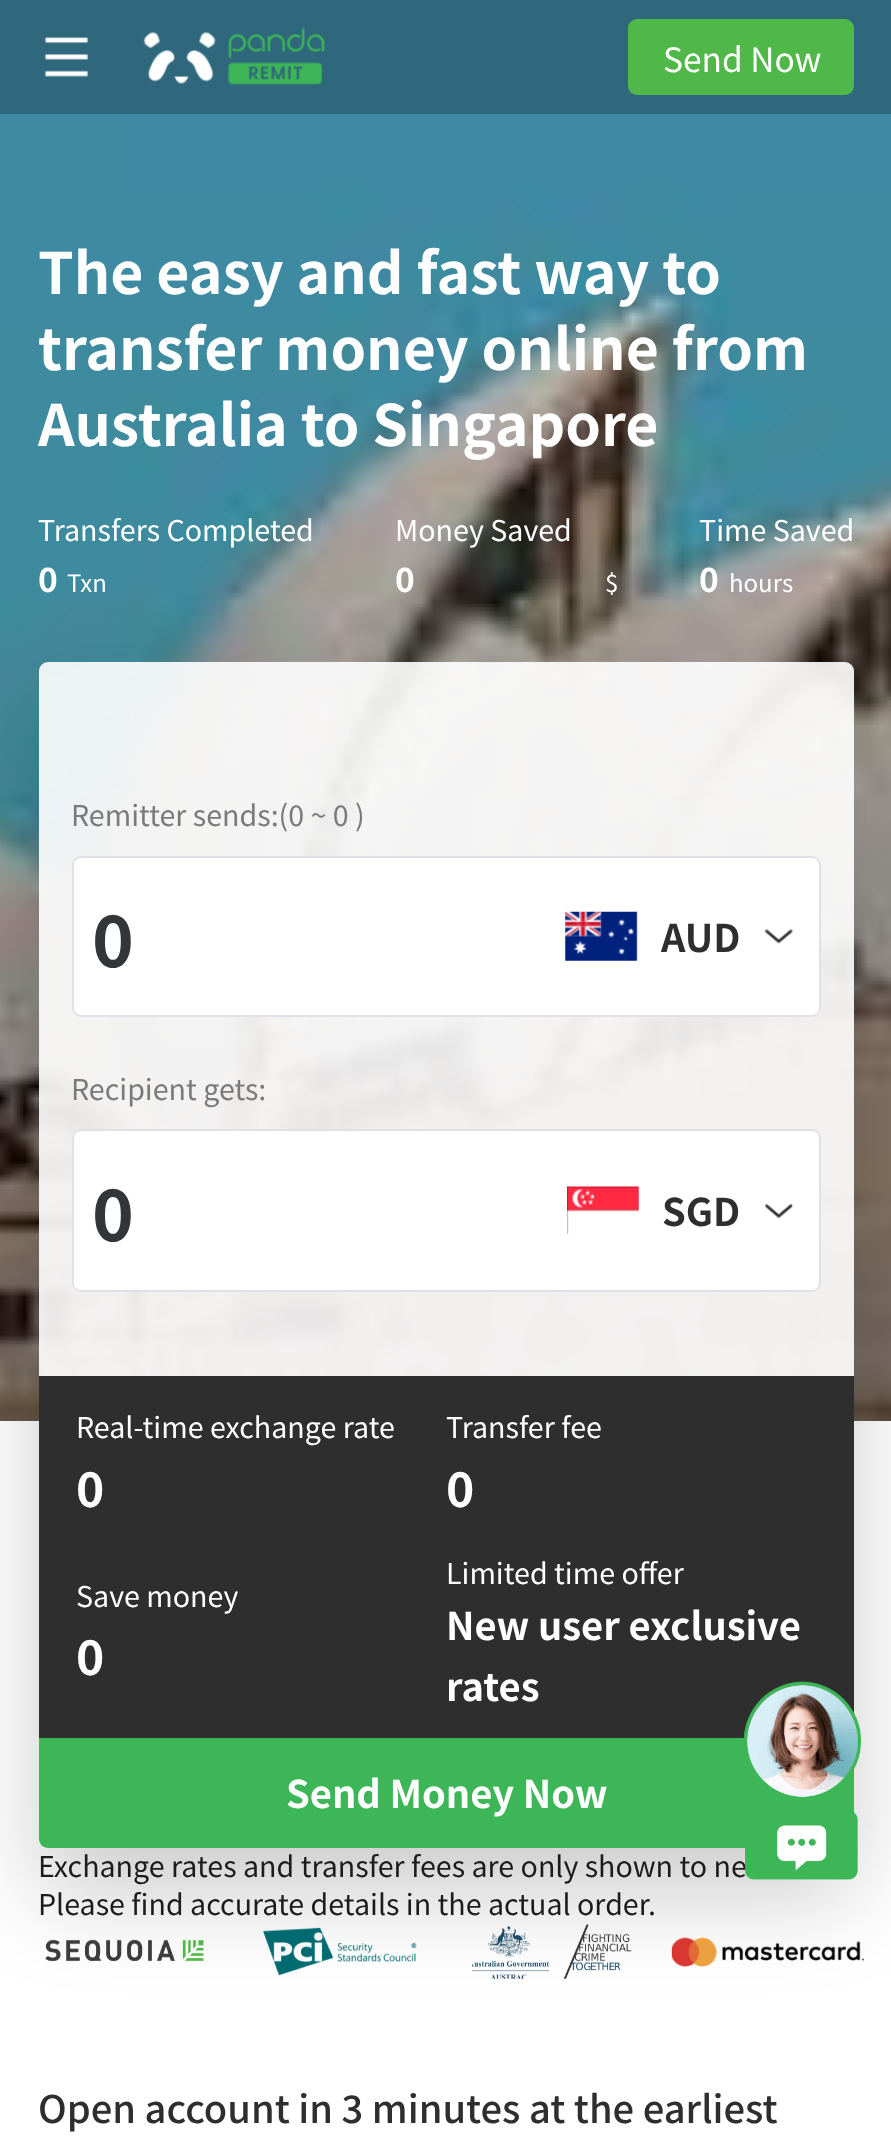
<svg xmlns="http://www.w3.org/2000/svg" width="891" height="2147">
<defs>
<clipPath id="clip1"><path d="M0 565h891v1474h-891zm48 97h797c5 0 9 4 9 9v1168c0 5-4 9-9 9h-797c-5 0-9-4-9-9v-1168c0-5 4-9 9-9z" clip-rule="evenodd"/></clipPath>
</defs>
<rect width="100%" height="100%" fill="#fff"/>
<rect width="891" height="114" fill="#2f687c"/>
<image x="44" y="37" width="44" height="40" href="media/1.png"/>
<image x="143" y="27" width="182" height="58" href="media/2.png"/>
<rect x="628" y="19" width="226" height="76" rx="9" fill="#50b848"/>
<text x="663" y="72" style="font-family:Noto Sans CJK SC;font-size:33.5px;fill:#fff">Send Now</text>
<image x="0" y="114" width="891" height="1307" href="media/12.png"/>
<text x="38" y="294" style="font-family:Noto Sans CJK SC;font-size:57.1px;font-weight:bold;fill:#fff">The easy and fast way to</text>
<text x="38" y="370" style="font-family:Noto Sans CJK SC;font-size:57.1px;font-weight:bold;fill:#fff">transfer money online from</text>
<text x="38" y="446" style="font-family:Noto Sans CJK SC;font-size:57.1px;font-weight:bold;fill:#fff">Australia to Singapore</text>
<text x="38" y="541" style="font-family:Noto Sans CJK SC;font-size:28.6px;fill:#fff">Transfers Completed</text>
<text x="38" y="592" style="font-family:Noto Sans CJK SC;font-size:33.5px;font-weight:bold;fill:#fff">0</text>
<text x="67" y="592" style="font-family:Noto Sans CJK SC;font-size:24px;fill:#fff">Txn</text>
<text x="395" y="541" style="font-family:Noto Sans CJK SC;font-size:28.6px;fill:#fff">Money Saved</text>
<text x="395" y="592" style="font-family:Noto Sans CJK SC;font-size:33.5px;font-weight:bold;fill:#fff">0</text>
<text x="605" y="592" style="font-family:Noto Sans CJK SC;font-size:24px;fill:#fff">$</text>
<text x="699" y="541" style="font-family:Noto Sans CJK SC;font-size:28.6px;fill:#fff">Time Saved</text>
<text x="699" y="592" style="font-family:Noto Sans CJK SC;font-size:33.5px;font-weight:bold;fill:#fff">0</text>
<text x="729" y="592" style="font-family:Noto Sans CJK SC;font-size:24px;fill:#fff">hours</text>
<g clip-path="url(#clip1)">
<rect x="39" y="709" width="815" height="1186" rx="9" fill="#00000033" filter="blur(47.5px)"/>
</g>
<rect x="39" y="662" width="815" height="1186" rx="9" fill="#ffffffe6"/>
<text x="71" y="826" style="font-family:Noto Sans CJK SC;font-size:28.6px;fill:#7a7a7a">Remitter sends:(0 ~ 0 )</text>
<rect x="72" y="856" width="749" height="161" rx="9" fill="#fff"/>
<image x="565" y="911" width="73" height="50" href="media/3.png"/>
<image x="764" y="928" width="30" height="16" href="media/4.png"/>
<rect x="73" y="857" width="747" height="159" rx="8" fill="none" stroke="#e0e0e6" stroke-width="2"/>
<text x="92" y="967" style="font-family:Noto Sans CJK SC;font-size:71px;font-weight:bold;fill:#333639">0</text>
<text x="661" y="952" style="font-family:Noto Sans CJK SC;font-size:38.1px;font-weight:bold;fill:#2e2e2e">AUD</text>
<text x="71" y="1100" style="font-family:Noto Sans CJK SC;font-size:28.6px;fill:#7a7a7a">Recipient gets:</text>
<rect x="72" y="1129" width="749" height="163" rx="9" fill="#fff"/>
<image x="567" y="1186" width="72" height="49" href="media/5.png"/>
<image x="764" y="1203" width="29" height="16" href="media/6.png"/>
<rect x="73" y="1130" width="747" height="161" rx="8" fill="none" stroke="#e0e0e6" stroke-width="2"/>
<text x="92" y="1241" style="font-family:Noto Sans CJK SC;font-size:71px;font-weight:bold;fill:#333639">0</text>
<text x="662" y="1226" style="font-family:Noto Sans CJK SC;font-size:38.1px;font-weight:bold;fill:#2e2e2e">SGD</text>
<rect x="39" y="1376" width="815" height="362" fill="#2e2e2e"/>
<text x="76" y="1438" style="font-family:Noto Sans CJK SC;font-size:28.6px;fill:#fff">Real-time exchange rate</text>
<text x="76" y="1507" style="font-family:Noto Sans CJK SC;font-size:48px;font-weight:bold;fill:#fff">0</text>
<text x="446" y="1438" style="font-family:Noto Sans CJK SC;font-size:28.6px;fill:#fff">Transfer fee</text>
<text x="446" y="1507" style="font-family:Noto Sans CJK SC;font-size:48px;font-weight:bold;fill:#fff">0</text>
<text x="76" y="1607" style="font-family:Noto Sans CJK SC;font-size:28.6px;fill:#fff">Save money</text>
<text x="76" y="1675" style="font-family:Noto Sans CJK SC;font-size:48px;font-weight:bold;fill:#fff">0</text>
<text x="446" y="1584" style="font-family:Noto Sans CJK SC;font-size:28.6px;fill:#fff">Limited time offer</text>
<text x="446" y="1640" style="font-family:Noto Sans CJK SC;font-size:38.1px;font-weight:bold;fill:#fff">New user exclusive</text>
<text x="446" y="1701" style="font-family:Noto Sans CJK SC;font-size:38.1px;font-weight:bold;fill:#fff">rates</text>
<path d="M39 1738h815v101c0 5-4 9-9 9h-797c-5 0-9-4-9-9z" fill="#3db657"/>
<text x="286" y="1808" style="font-family:Noto Sans CJK SC;font-size:38.1px;font-weight:bold;fill:#fff">Send Money Now</text>
<text x="38" y="1877" style="font-family:Noto Sans CJK SC;font-size:28.6px;fill:#1d1c1c">Exchange rates and transfer fees are only shown to ne</text>
<text x="38" y="1915" style="font-family:Noto Sans CJK SC;font-size:28.6px;fill:#1d1c1c">Please find accurate details in the actual order.</text>
<image x="45" y="1939" width="159" height="23" href="media/7.png"/>
<image x="262" y="1927" width="155" height="49" href="media/8.png"/>
<image x="472" y="1924" width="160" height="55" href="media/9.png"/>
<image x="671" y="1937" width="194" height="30" href="media/10.png"/>
<image x="743" y="1681" width="119" height="199" href="media/11.png"/>
<text x="38" y="2123" style="font-family:Noto Sans CJK SC;font-size:38.1px;font-weight:500;fill:#2e2e2e">Open account in 3 minutes at the earliest</text>
</svg>
